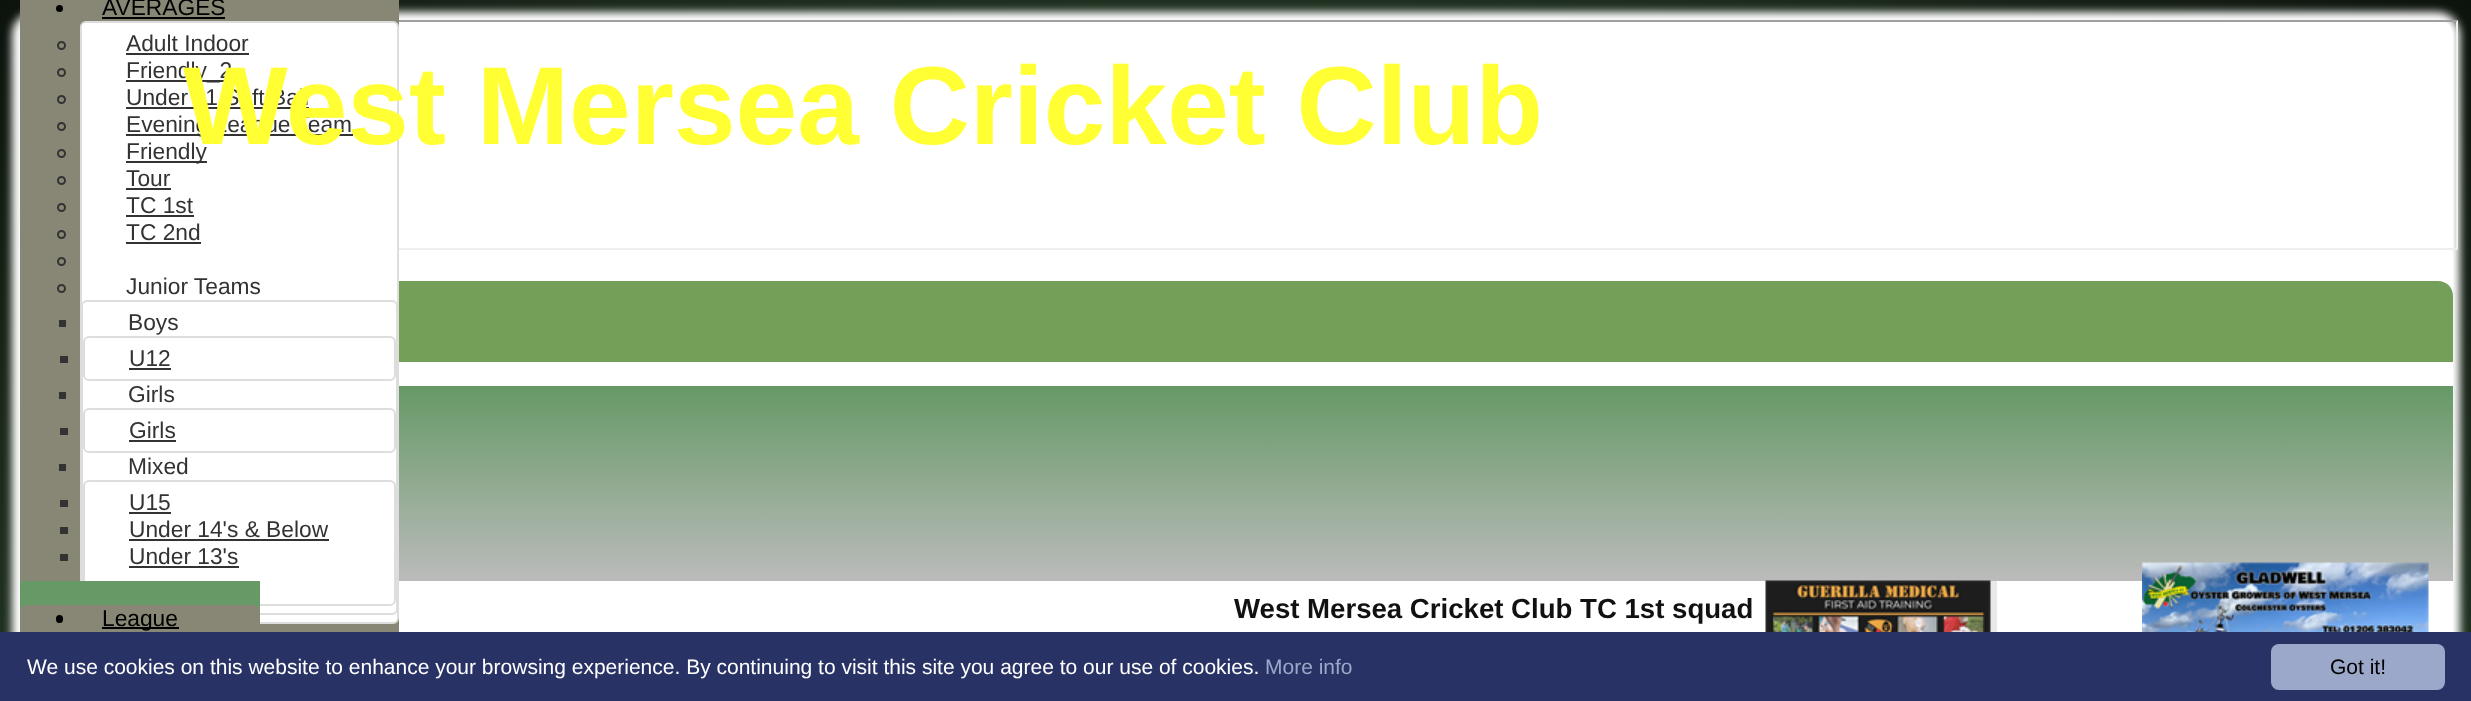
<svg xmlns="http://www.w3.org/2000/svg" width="2471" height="701">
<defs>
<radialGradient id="g1" gradientUnits="userSpaceOnUse" cx="1236" cy="1523" r="2228"><stop offset="0" stop-color="#696"/><stop offset="1" stop-color="#000"/></radialGradient>
<linearGradient id="g2" gradientUnits="userSpaceOnUse" x1="1236" y1="386" x2="1236" y2="581"><stop offset="0" stop-color="#696"/><stop offset="1" stop-color="#bbb"/></linearGradient>
<linearGradient id="g3" gradientUnits="userSpaceOnUse" x1="140" y1="581" x2="140" y2="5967"><stop offset="0" stop-color="#696"/><stop offset="1" stop-color="#fff"/></linearGradient>
</defs>
<rect width="100%" height="100%" fill="#fff"/>
<rect width="2471" height="632" fill="url(#g1)"/>
<rect x="12" y="12" width="2448" height="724" rx="23" fill="#fff" filter="blur(4px)"/>
<rect x="20" y="20" width="2433" height="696" rx="15" fill="#fff"/>
<rect x="399" y="386" width="2054" height="195" fill="url(#g2)"/>
<path d="M20 20h2438l-2 2h-2434z" fill="#9f9f9f"/>
<path d="M2458 20v230l-2-2v-226z" fill="#eee"/>
<path d="M2458 250h-2438l2-2h2434z" fill="#eee"/>
<path d="M35 281h2403c8.5 0 15 6.5 15 15v66h-2433v-66c0-8.5 6.5-15 15-15z" fill="#749f58"/>
<rect x="20" width="379" height="632" fill="#888775"/>
<circle cx="59.5" cy="8.5" r="3.5" fill="#000"/>
<text x="102" y="15" style="font-family:Liberation Sans;font-size:22.75px;fill:#000">AVERAGES</text>
<rect x="102" y="17" width="123" height="2" fill="#000"/>
<rect x="81" y="22" width="317" height="601" rx="5" fill="#fff" stroke="#ddd" stroke-width="2"/>
<circle cx="61.5" cy="45.5" r="3.5" fill="none" stroke="#333" stroke-width="2"/>
<text x="126" y="51" style="font-family:Liberation Sans;font-size:22.75px;fill:#333">Adult Indoor</text>
<rect x="126" y="53" width="123" height="2" fill="#333"/>
<circle cx="61.5" cy="72.5" r="3.5" fill="none" stroke="#333" stroke-width="2"/>
<rect x="126" y="80" width="107" height="2" fill="#333"/>
<text x="126" y="78" style="font-family:Liberation Sans;font-size:22.75px;fill:#333">Friendly_2</text>
<circle cx="61.5" cy="99.5" r="3.5" fill="none" stroke="#333" stroke-width="2"/>
<text x="126" y="105" style="font-family:Liberation Sans;font-size:22.75px;fill:#333">Under 11 Soft Ball</text>
<rect x="126" y="107" width="183" height="2" fill="#333"/>
<circle cx="61.5" cy="126.5" r="3.5" fill="none" stroke="#333" stroke-width="2"/>
<rect x="126" y="134" width="227" height="2" fill="#333"/>
<text x="126" y="132" style="font-family:Liberation Sans;font-size:22.75px;fill:#333">Evening League Team</text>
<circle cx="61.5" cy="153.5" r="3.5" fill="none" stroke="#333" stroke-width="2"/>
<rect x="126" y="161" width="81" height="2" fill="#333"/>
<text x="126" y="159" style="font-family:Liberation Sans;font-size:22.75px;fill:#333">Friendly</text>
<circle cx="61.5" cy="180.5" r="3.5" fill="none" stroke="#333" stroke-width="2"/>
<text x="126" y="186" style="font-family:Liberation Sans;font-size:22.75px;fill:#333">Tour</text>
<rect x="126" y="188" width="45" height="2" fill="#333"/>
<circle cx="61.5" cy="207.5" r="3.5" fill="none" stroke="#333" stroke-width="2"/>
<text x="126" y="213" style="font-family:Liberation Sans;font-size:22.75px;fill:#333">TC 1st</text>
<rect x="126" y="215" width="68" height="2" fill="#333"/>
<circle cx="61.5" cy="234.5" r="3.5" fill="none" stroke="#333" stroke-width="2"/>
<text x="126" y="240" style="font-family:Liberation Sans;font-size:22.75px;fill:#333">TC 2nd</text>
<rect x="126" y="242" width="75" height="2" fill="#333"/>
<circle cx="61.5" cy="261.5" r="3.5" fill="none" stroke="#333" stroke-width="2"/>
<circle cx="61.5" cy="288.5" r="3.5" fill="none" stroke="#333" stroke-width="2"/>
<text x="126" y="294" style="font-family:Liberation Sans;font-size:22.75px;fill:#333">Junior Teams</text>
<rect x="82" y="301" width="315" height="313" rx="5" fill="#fff" stroke="#ddd" stroke-width="2"/>
<rect x="59" y="320" width="7" height="7" fill="#333"/>
<text x="128" y="330" style="font-family:Liberation Sans;font-size:22.75px;fill:#333">Boys</text>
<rect x="84" y="337" width="311" height="43" rx="5" fill="none" stroke="#ddd" stroke-width="2"/>
<rect x="60" y="356" width="8" height="7" fill="#333"/>
<text x="129" y="366" style="font-family:Liberation Sans;font-size:22.75px;fill:#333">U12</text>
<rect x="129" y="368" width="42" height="2" fill="#333"/>
<rect x="59" y="392" width="7" height="7" fill="#333"/>
<text x="128" y="402" style="font-family:Liberation Sans;font-size:22.75px;fill:#333">Girls</text>
<rect x="84" y="409" width="311" height="43" rx="5" fill="none" stroke="#ddd" stroke-width="2"/>
<rect x="60" y="428" width="8" height="7" fill="#333"/>
<text x="129" y="438" style="font-family:Liberation Sans;font-size:22.75px;fill:#333">Girls</text>
<rect x="129" y="440" width="47" height="2" fill="#333"/>
<rect x="59" y="464" width="7" height="7" fill="#333"/>
<text x="128" y="474" style="font-family:Liberation Sans;font-size:22.75px;fill:#333">Mixed</text>
<rect x="84" y="481" width="311" height="124" rx="5" fill="none" stroke="#ddd" stroke-width="2"/>
<rect x="60" y="500" width="8" height="7" fill="#333"/>
<text x="129" y="510" style="font-family:Liberation Sans;font-size:22.75px;fill:#333">U15</text>
<rect x="129" y="512" width="42" height="2" fill="#333"/>
<rect x="60" y="527" width="8" height="7" fill="#333"/>
<text x="129" y="537" style="font-family:Liberation Sans;font-size:22.75px;fill:#333">Under 14's &amp; Below</text>
<rect x="129" y="539" width="200" height="2" fill="#333"/>
<rect x="60" y="554" width="8" height="7" fill="#333"/>
<text x="129" y="564" style="font-family:Liberation Sans;font-size:22.75px;fill:#333">Under 13's</text>
<rect x="129" y="566" width="110" height="2" fill="#333"/>
<text x="183" y="144" style="font-family:Liberation Sans;font-size:110.9px;font-weight:bold;fill:#ff3">West Mersea Cricket Club</text>
<image x="2142" y="562" width="287" height="70" href="media/1.png"/>
<rect x="20" y="581" width="240" height="30" fill="url(#g3)"/>
<rect x="20" y="605" width="240" height="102" rx="6" fill="#888775"/>
<rect x="56" y="615" width="7" height="8" rx="3.5" fill="#000"/>
<rect x="102" y="627" width="77" height="2" fill="#000"/>
<text x="102" y="626" style="font-family:Liberation Sans;font-size:22.75px;fill:#000">League</text>
<text x="1234" y="618" style="font-family:Liberation Sans;font-size:27.6px;font-weight:bold;fill:#111">West Mersea Cricket Club TC 1st squad</text>
<rect x="1766" y="581" width="231" height="51" fill="#e8e8e8"/>
<image x="1765" y="580" width="226" height="52" href="media/2.png"/>
<rect y="632" width="2471" height="69" fill="#293264"/>
<text x="27" y="674" style="font-family:Liberation Sans;font-size:21px;fill:#fff">We use cookies on this website to enhance your browsing experience. By continuing to visit this site you agree to our use of cookies.</text>
<text x="1265" y="674" style="font-family:Liberation Sans;font-size:21px;fill:#9ca8c9">More info</text>
<rect x="2271" y="644" width="174" height="46" rx="8" fill="#9ca8c9"/>
<text x="2330" y="674" style="font-family:Liberation Sans;font-size:21px;fill:#000">Got it!</text>
</svg>
